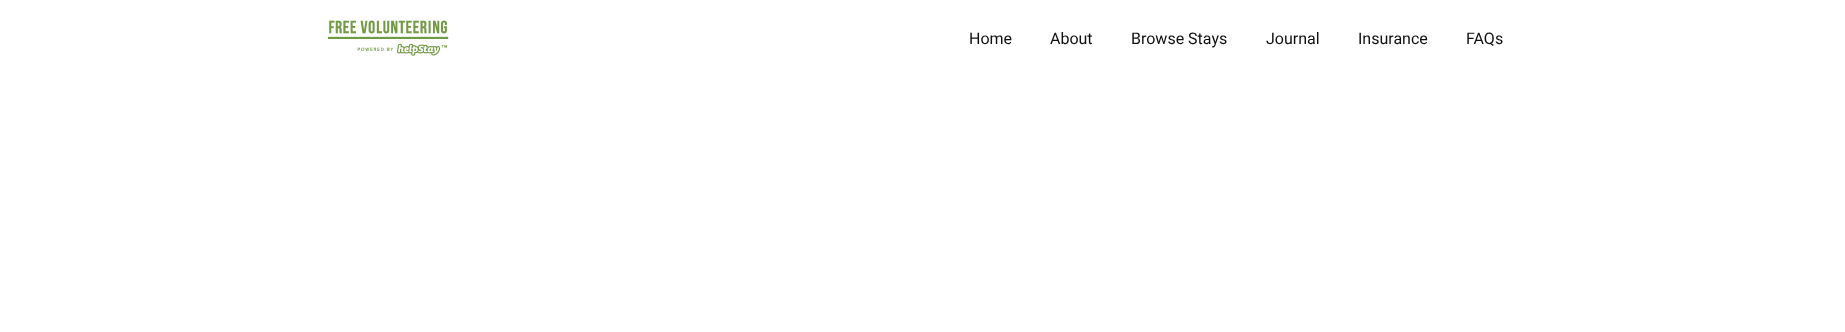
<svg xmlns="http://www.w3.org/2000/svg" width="1845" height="332">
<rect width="100%" height="100%" fill="#fff"/>
<image x="328" y="20" width="121" height="36" href="media/1.png"/>
<text x="969" y="44" style="font-family:Roboto;font-size:16px;fill:#101010">Home</text>
<text x="1050" y="44" style="font-family:Roboto;font-size:16px;fill:#101010">About</text>
<text x="1131" y="44" style="font-family:Roboto;font-size:16px;fill:#101010">Browse Stays</text>
<text x="1266" y="44" style="font-family:Roboto;font-size:16px;fill:#101010">Journal</text>
<text x="1358" y="44" style="font-family:Roboto;font-size:16px;fill:#101010">Insurance</text>
<text x="1466" y="44" style="font-family:Roboto;font-size:16px;fill:#101010">FAQs</text>
</svg>
